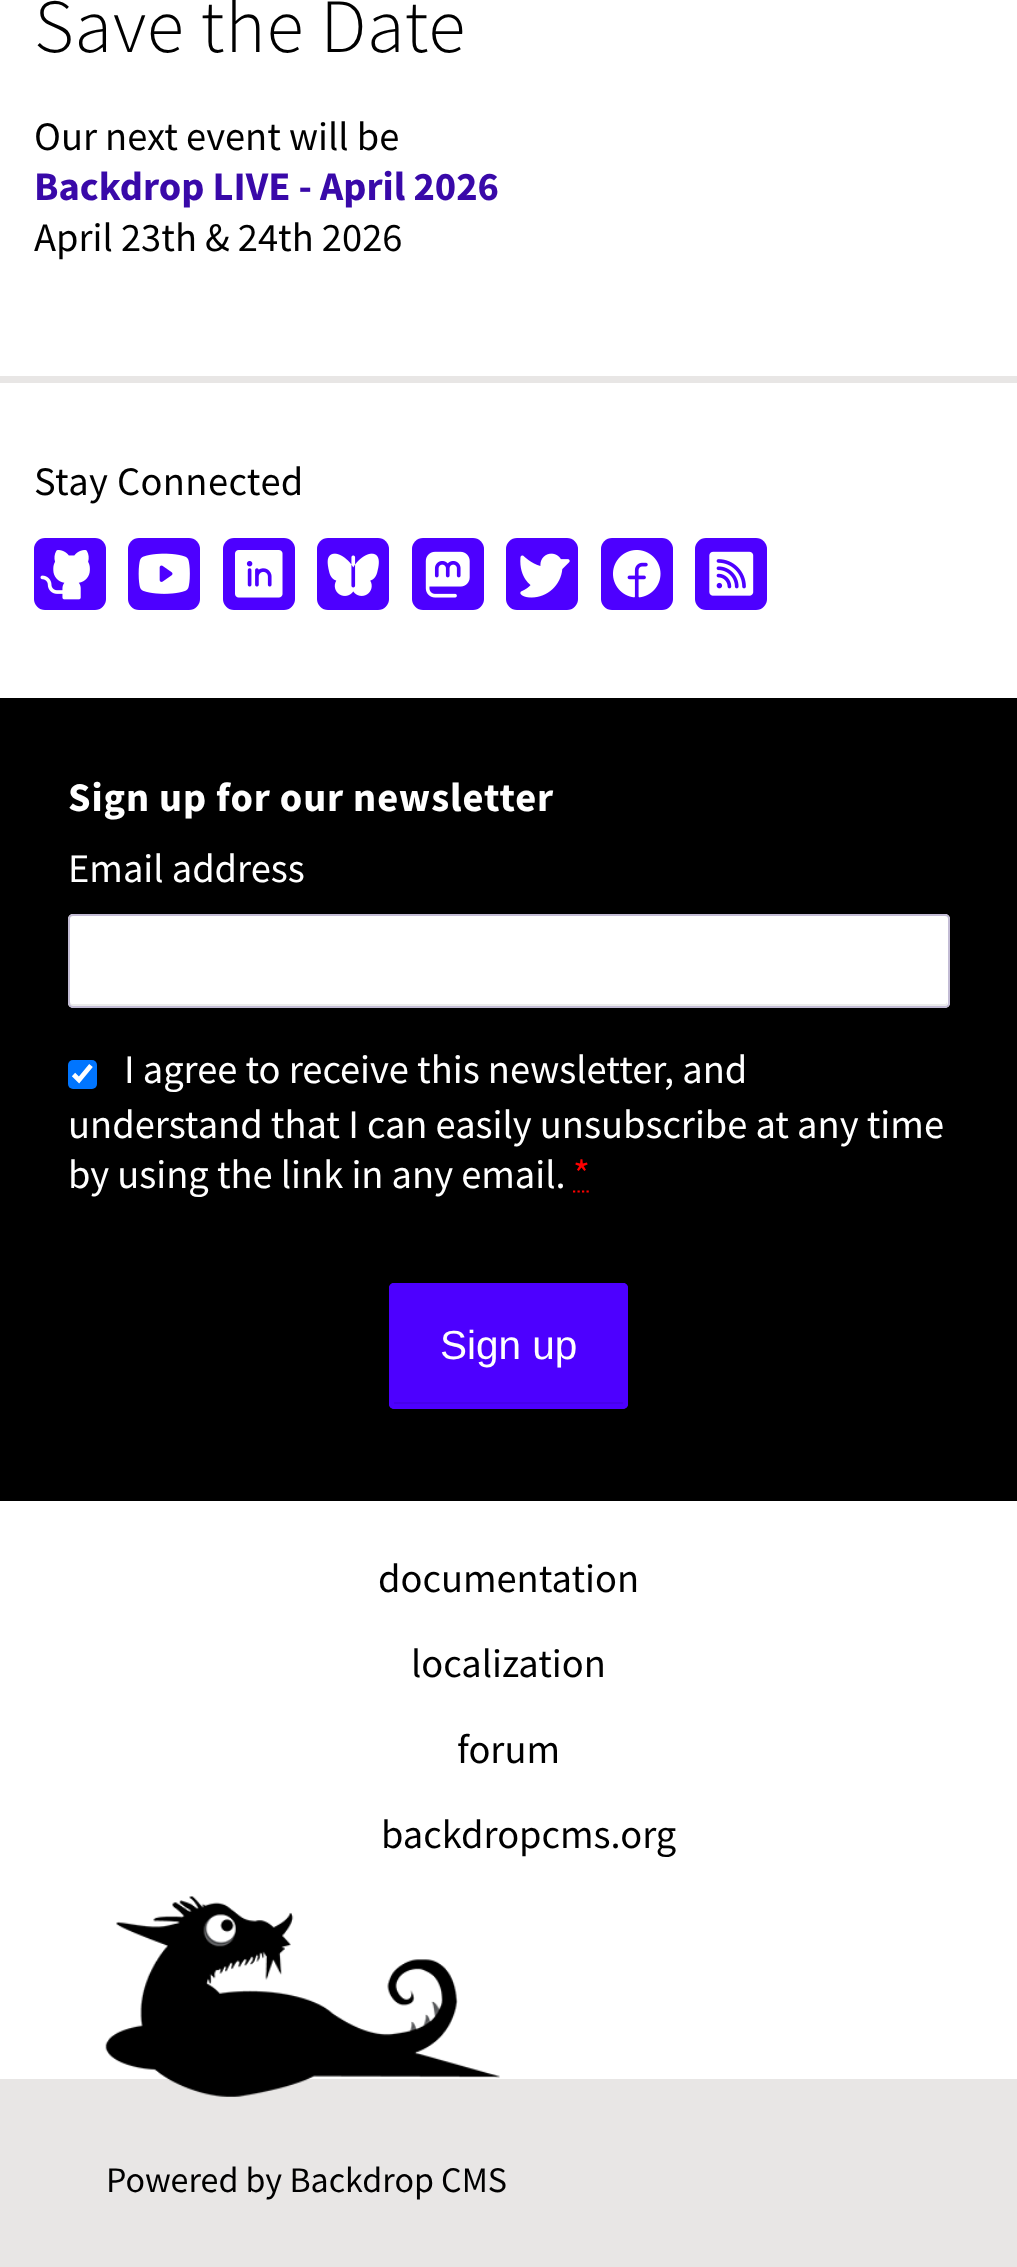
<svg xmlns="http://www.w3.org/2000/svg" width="1017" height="2267">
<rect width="100%" height="100%" fill="#fff"/>
<text x="34" y="52" style="font-family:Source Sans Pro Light;font-size:76.5px;font-weight:300;letter-spacing:0.75px;fill:#000">Save the Date</text>
<text x="34" y="150" style="font-family:Source Sans Pro;font-size:40.5px;fill:#000">Our next event will be</text>
<text x="34" y="200" style="font-family:Source Sans Pro;font-size:40.5px;font-weight:bold;fill:#3909a9">Backdrop LIVE - April 2026</text>
<text x="34" y="251" style="font-family:Source Sans Pro;font-size:40.5px;fill:#000">April 23th &amp; 24th 2026</text>
<rect y="376" width="1017" height="7" fill="#e8e6e5"/>
<rect y="2079" width="1017" height="188" fill="#e8e6e5"/>
<text x="34" y="495" style="font-family:Source Sans Pro;font-size:40.5px;letter-spacing:0.4px;fill:#000">Stay Connected</text>
<rect x="34" y="538" width="72" height="72" rx="11" fill="#4d00ff"/>
<image x="40" y="550" width="50" height="50" href="media/1.png"/>
<rect x="128" y="538" width="72" height="72" rx="11" fill="#4d00ff"/>
<image x="138" y="553" width="52" height="41" href="media/2.png"/>
<rect x="223" y="538" width="72" height="72" rx="11" fill="#4d00ff"/>
<image x="235" y="550" width="48" height="48" href="media/3.png"/>
<rect x="317" y="538" width="72" height="72" rx="11" fill="#4d00ff"/>
<image x="327" y="553" width="52" height="43" href="media/4.png"/>
<rect x="412" y="538" width="72" height="72" rx="11" fill="#4d00ff"/>
<image x="425" y="551" width="45" height="47" href="media/5.png"/>
<rect x="506" y="538" width="72" height="72" rx="11" fill="#4d00ff"/>
<image x="520" y="553" width="50" height="45" href="media/6.png"/>
<rect x="601" y="538" width="72" height="72" rx="11" fill="#4d00ff"/>
<image x="613" y="550" width="48" height="48" href="media/7.png"/>
<rect x="695" y="538" width="72" height="72" rx="11" fill="#4d00ff"/>
<image x="709" y="551" width="45" height="45" href="media/8.png"/>
<rect y="698" width="1017" height="803" fill="#000"/>
<text x="68" y="811" style="font-family:Source Sans Pro;font-size:40.5px;font-weight:bold;letter-spacing:0.9px;fill:#fff">Sign up for our newsletter</text>
<text x="68" y="882" style="font-family:Source Sans Pro;font-size:40.5px;fill:#fff">Email address</text>
<rect x="68" y="914" width="882" height="94" rx="5" fill="#fff"/>
<path d="M70 1001v4l1 1h874c3 0 2-3 2-5c0 1-1 3-2 3h-873c-1 0-2-2-2-3z" fill="#ececec"/>
<rect x="69" y="915" width="880" height="92" rx="4" fill="none" stroke="#c3bcd5" stroke-width="2"/>
<rect x="68" y="1060" width="29" height="29" rx="5" fill="#0075ff"/>
<path d="M73.5 1074.5l5.5 5.5l12-14.5" fill="none" stroke="#fff" stroke-width="4.7"/>
<text x="124" y="1083" style="font-family:Source Sans Pro;font-size:40.5px;fill:#fff">I agree to receive this newsletter, and</text>
<text x="68" y="1138" style="font-family:Source Sans Pro;font-size:40.5px;fill:#fff">understand that I can easily unsubscribe at any time</text>
<text x="68" y="1188" style="font-family:Source Sans Pro;font-size:40.5px;fill:#fff">by using the link in any email.</text>
<path d="M573 1191.5h17" fill="none" stroke="#f00" stroke-width="2.2" stroke-dasharray="2.25 2.25"/>
<text x="573" y="1188" style="font-family:Source Sans Pro;font-size:40.5px;fill:#f00">*</text>
<rect x="389" y="1283" width="239" height="126" rx="5" fill="#4d00ff"/>
<rect x="394" y="1402" width="229" height="2" fill="#4700ec"/>
<rect x="391.5" y="1285.5" width="234" height="121" rx="2.5" fill="none" stroke="#4d00ff" stroke-width="5"/>
<text x="440" y="1359" style="font-family:Liberation Sans;font-size:40.5px;fill:#fff">Sign up</text>
<text x="378" y="1592" style="font-family:Source Sans Pro;font-size:40.5px;fill:#000">documentation</text>
<text x="411" y="1677" style="font-family:Source Sans Pro;font-size:40.5px;fill:#000">localization</text>
<text x="457" y="1763" style="font-family:Source Sans Pro;font-size:40.5px;fill:#000">forum</text>
<text x="381" y="1848" style="font-family:Source Sans Pro;font-size:40.5px;fill:#000">backdropcms.org</text>
<image x="105" y="1896" width="395" height="201" href="media/9.png"/>
<text x="106" y="2192" style="font-family:Source Sans Pro;font-size:36px;fill:#000">Powered by Backdrop CMS</text>
</svg>
